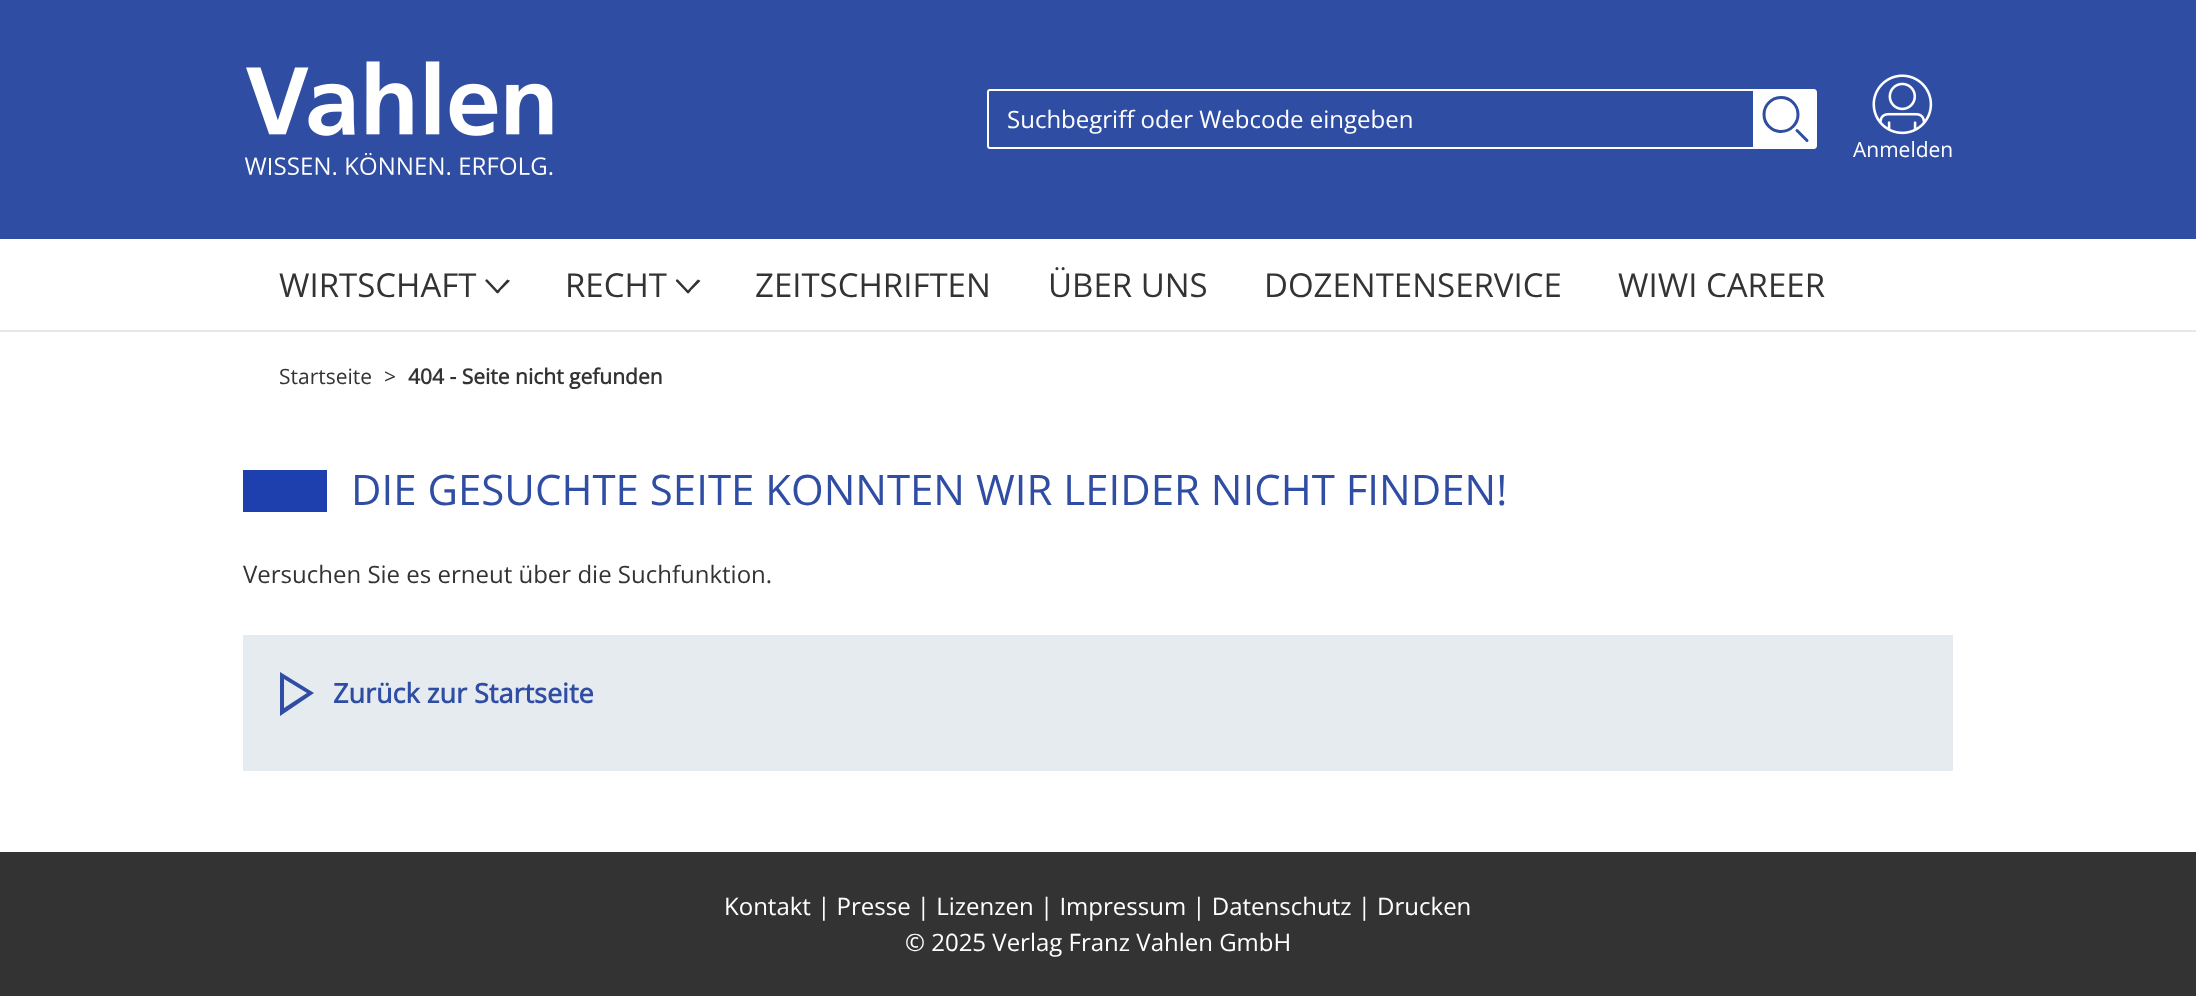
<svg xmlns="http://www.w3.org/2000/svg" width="2196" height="996">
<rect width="100%" height="100%" fill="#fff"/>
<rect width="2196" height="239" fill="#2f4da3"/>
<image x="244" y="61" width="309" height="115" href="media/1.png"/>
<path d="M990 90h764v58h-764c-1 0-2-1-2-2v-54c0-1 1-2 2-2z" fill="none" stroke="#fff" stroke-width="2"/>
<text x="1007" y="128" style="font-family:Open Sans;font-size:24px;fill:#fff">Suchbegriff oder Webcode eingeben</text>
<path d="M1755 89h59c1.5 0 3 1.5 3 3v54c0 1.5-1.5 3-3 3h-59z" fill="#fff"/>
<path d="M1797 130.5l10 10" fill="none" stroke="#2f4da3" stroke-width="3" stroke-linecap="round" stroke-linejoin="round"/>
<circle cx="1781" cy="114.5" r="17" fill="none" stroke="#2f4da3" stroke-width="3"/>
<image x="1872" y="74" width="61" height="61" href="media/2.png"/>
<text x="1853" y="157" style="font-family:Open Sans;font-size:21px;fill:#fff">Anmelden</text>
<text x="279" y="297" style="font-family:Open Sans;font-size:33px;fill:#333">WIRTSCHAFT</text>
<path d="M508.5 281l-7.5 7.5c-4 4.5-2.5 5.5-5.5 2l-9-9.5c-.5-.5 0-1 .5-.5l10.5 11l10-11z" fill="none" stroke="#333" stroke-width="1.8"/>
<text x="565" y="297" style="font-family:Open Sans;font-size:33px;fill:#333">RECHT</text>
<path d="M699 281l-7.5 7.5c-4 4.5-2.5 5.5-5.5 2l-9-9.5c-.5-.5 0-1 .5-.5l10.5 11l10-11z" fill="none" stroke="#333" stroke-width="1.8"/>
<text x="755" y="297" style="font-family:Open Sans;font-size:33px;fill:#333">ZEITSCHRIFTEN</text>
<text x="1048" y="297" style="font-family:Open Sans;font-size:33px;fill:#333">ÜBER UNS</text>
<text x="1264" y="297" style="font-family:Open Sans;font-size:33px;fill:#333">DOZENTENSERVICE</text>
<text x="1618" y="297" style="font-family:Open Sans;font-size:33px;fill:#333">WIWI CAREER</text>
<rect y="330" width="2196" height="2" fill="#e5e7eb"/>
<text x="279" y="384" style="font-family:Open Sans;font-size:21px;fill:#333">Startseite</text>
<text x="384" y="384" style="font-family:Open Sans;font-size:21px;fill:#333">&gt;</text>
<text x="408" y="384" style="font-family:Open Sans;font-size:21px;font-weight:bold;fill:#333">404 - Seite nicht gefunden</text>
<rect x="243" y="470" width="84" height="42" fill="#1e40af"/>
<text x="351" y="505" style="font-family:Open Sans;font-size:42px;fill:#2f4da3">DIE GESUCHTE SEITE KONNTEN WIR LEIDER NICHT FINDEN!</text>
<text x="243" y="583" style="font-family:Open Sans;font-size:24px;fill:#333">Versuchen Sie es erneut über die Suchfunktion.</text>
<rect x="243" y="635" width="1710" height="136" fill="#e5ebee"/>
<path d="M280 716v-44l34 21zm4-37v29l23-15z" fill="#2f4da3"/>
<text x="333" y="703" style="font-family:Open Sans;font-size:27px;font-weight:bold;fill:#2f4da3">Zurück zur Startseite</text>
<rect y="852" width="2196" height="144" fill="#333"/>
<text x="724" y="915" style="font-family:Open Sans;font-size:24px;fill:#fff">Kontakt | Presse | Lizenzen | Impressum | Datenschutz | Drucken</text>
<text x="905" y="951" style="font-family:Open Sans;font-size:24px;fill:#fff">© 2025 Verlag Franz Vahlen GmbH</text>
</svg>
